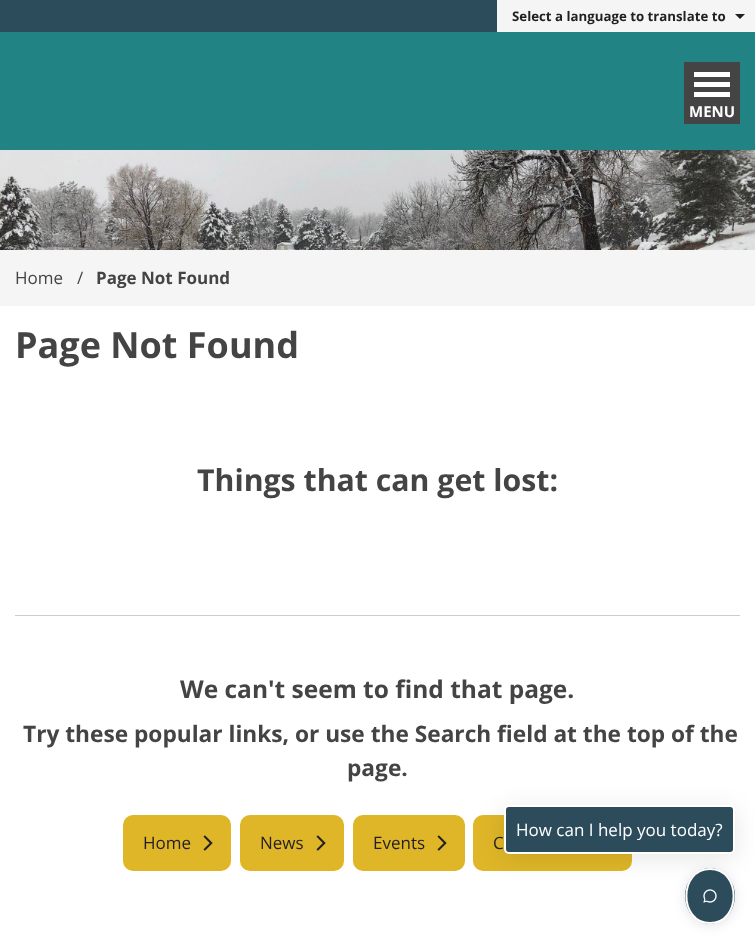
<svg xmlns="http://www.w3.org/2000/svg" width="755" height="944">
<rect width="100%" height="100%" fill="#fff"/>
<rect width="497" height="32" fill="#2c4c5c"/>
<rect x="497" width="258" height="32" fill="#f5f5f5"/>
<text x="512" y="21" style="font-family:Open Sans;font-size:13.25px;font-weight:bold;fill:#231f20">Select a language to translate to</text>
<path d="M735 14h10l-5 5z" fill="#231f20"/>
<rect y="32" width="755" height="118" fill="#218383"/>
<rect x="684" y="62" width="56" height="62" fill="#444"/>
<rect x="694" y="82" width="36" height="5" fill="#fff"/>
<rect x="694" y="72" width="36" height="5" fill="#fff"/>
<rect x="694" y="92" width="36" height="5" fill="#fff"/>
<text x="689" y="117" style="font-family:Open Sans;font-size:15px;font-weight:bold;fill:#fff">MENU</text>
<image x="0" y="150" width="755" height="100" href="media/1.png"/>
<rect y="250" width="755" height="56" fill="#f5f5f5"/>
<text x="15" y="284" style="font-family:Open Sans;font-size:17px;fill:#444">Home</text>
<text x="77" y="284" style="font-family:Open Sans;font-size:17px;fill:#444">/</text>
<text x="96" y="284" style="font-family:Open Sans;font-size:17px;font-weight:bold;fill:#444">Page Not Found</text>
<text x="15" y="358" style="font-family:Open Sans;font-size:36px;font-weight:bold;fill:#444">Page Not Found</text>
<text x="197" y="491" style="font-family:Open Sans;font-size:30.25px;font-weight:bold;fill:#444">Things that can get lost:</text>
<rect x="15" y="615" width="725" height="1" fill="#ccc"/>
<text x="180" y="698" style="font-family:Open Sans;font-size:24.5px;font-weight:bold;fill:#444">We can't seem to find that page.</text>
<text x="23" y="742" style="font-family:Open Sans;font-size:22.7px;font-weight:bold;fill:#444">Try these popular links, or use the Search field at the top of the</text>
<text x="347" y="776" style="font-family:Open Sans;font-size:22.7px;font-weight:bold;fill:#444">page.</text>
<rect x="123" y="815" width="108" height="56" rx="10" fill="#dfb628"/>
<text x="143" y="849" style="font-family:Open Sans;font-size:17px;fill:#231f20">Home</text>
<image x="203" y="835" width="10" height="16" href="media/2.png"/>
<rect x="240" y="815" width="104" height="56" rx="10" fill="#dfb628"/>
<text x="260" y="849" style="font-family:Open Sans;font-size:17px;fill:#231f20">News</text>
<image x="316" y="835" width="10" height="16" href="media/2.png"/>
<rect x="353" y="815" width="112" height="56" rx="10" fill="#dfb628"/>
<text x="373" y="849" style="font-family:Open Sans;font-size:17px;fill:#231f20">Events</text>
<image x="437" y="835" width="10" height="16" href="media/2.png"/>
<rect x="473" y="815" width="159" height="56" rx="10" fill="#dfb628"/>
<text x="493" y="849" style="font-family:Open Sans;font-size:17px;fill:#231f20">C</text>
<rect x="504" y="809" width="231" height="49" rx="5" fill="#0000001a" filter="blur(12px)"/>
<rect x="505" y="806" width="229" height="47" rx="4" fill="#2c4c5c" stroke="#fff" stroke-width="2"/>
<text x="516" y="836" style="font-family:Open Sans;font-size:17px;fill:#fff">How can I help you today?</text>
<rect x="685" y="870" width="50" height="56" rx="25" fill="#0000001a" filter="blur(6px)"/>
<ellipse cx="710" cy="896" rx="25" ry="28" fill="#2c4c5c"/>
<path d="M710 869c31.5 0 31.5 54 0 54c-31.5 0-31.5-54 0-54z" fill="none" stroke="#fff" stroke-width="2"/>
<image x="703" y="889" width="14" height="14" href="media/3.png"/>
</svg>
